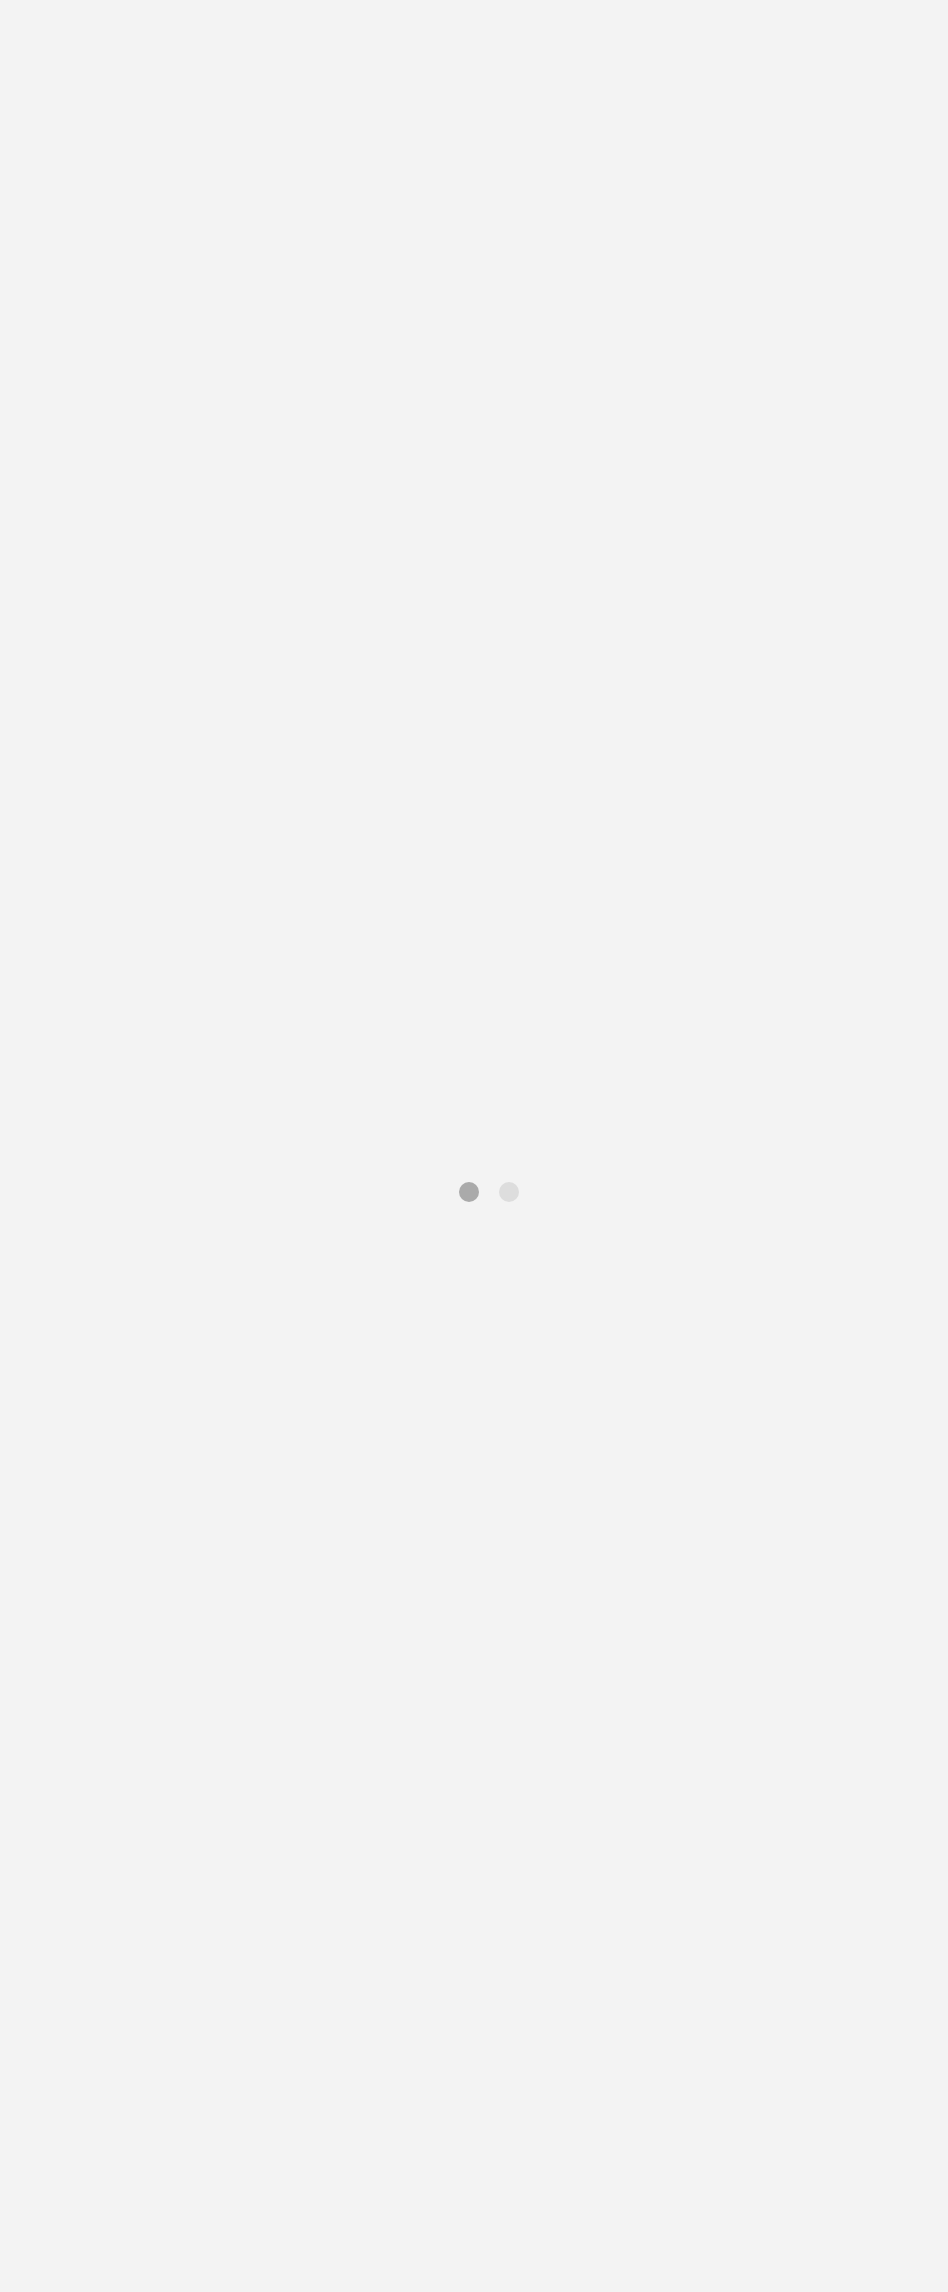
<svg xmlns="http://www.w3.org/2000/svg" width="948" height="2292">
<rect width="100%" height="100%" fill="#f3f3f3"/>
<circle cx="469" cy="1192" r="10" fill="#aaa"/>
<circle cx="509" cy="1192" r="10" fill="#ddd"/>
</svg>
